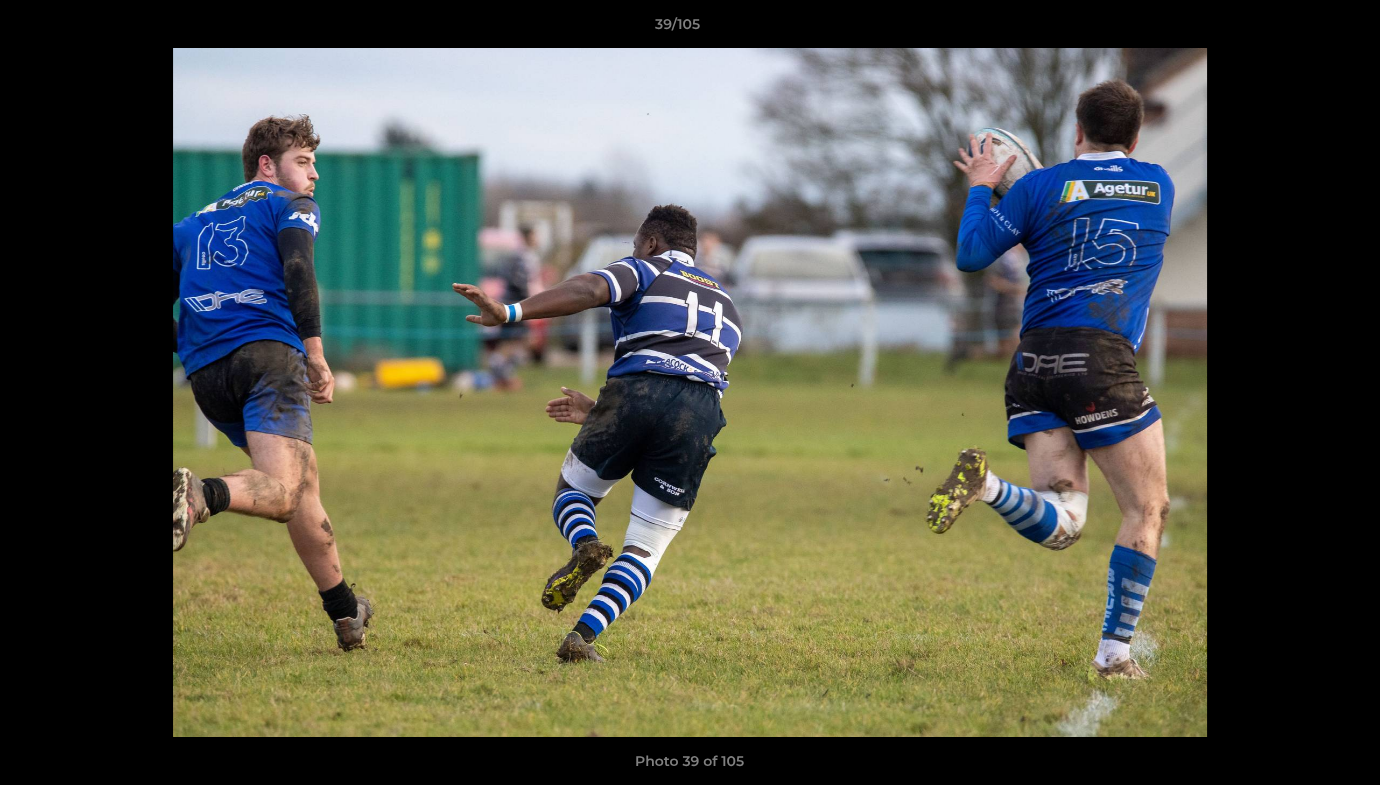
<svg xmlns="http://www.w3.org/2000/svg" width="1380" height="785">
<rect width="100%" height="100%" fill="#000"/>
<text x="655" y="29" style="font-family:Montserrat;font-size:14px;font-weight:600;fill:#808080">39/105</text>
<image x="173" y="48" width="1035" height="689" href="media/1.png"/>
<text x="635" y="766" style="font-family:Montserrat;font-size:14px;font-weight:600;fill:#808080">Photo 39 of 105</text>
</svg>
